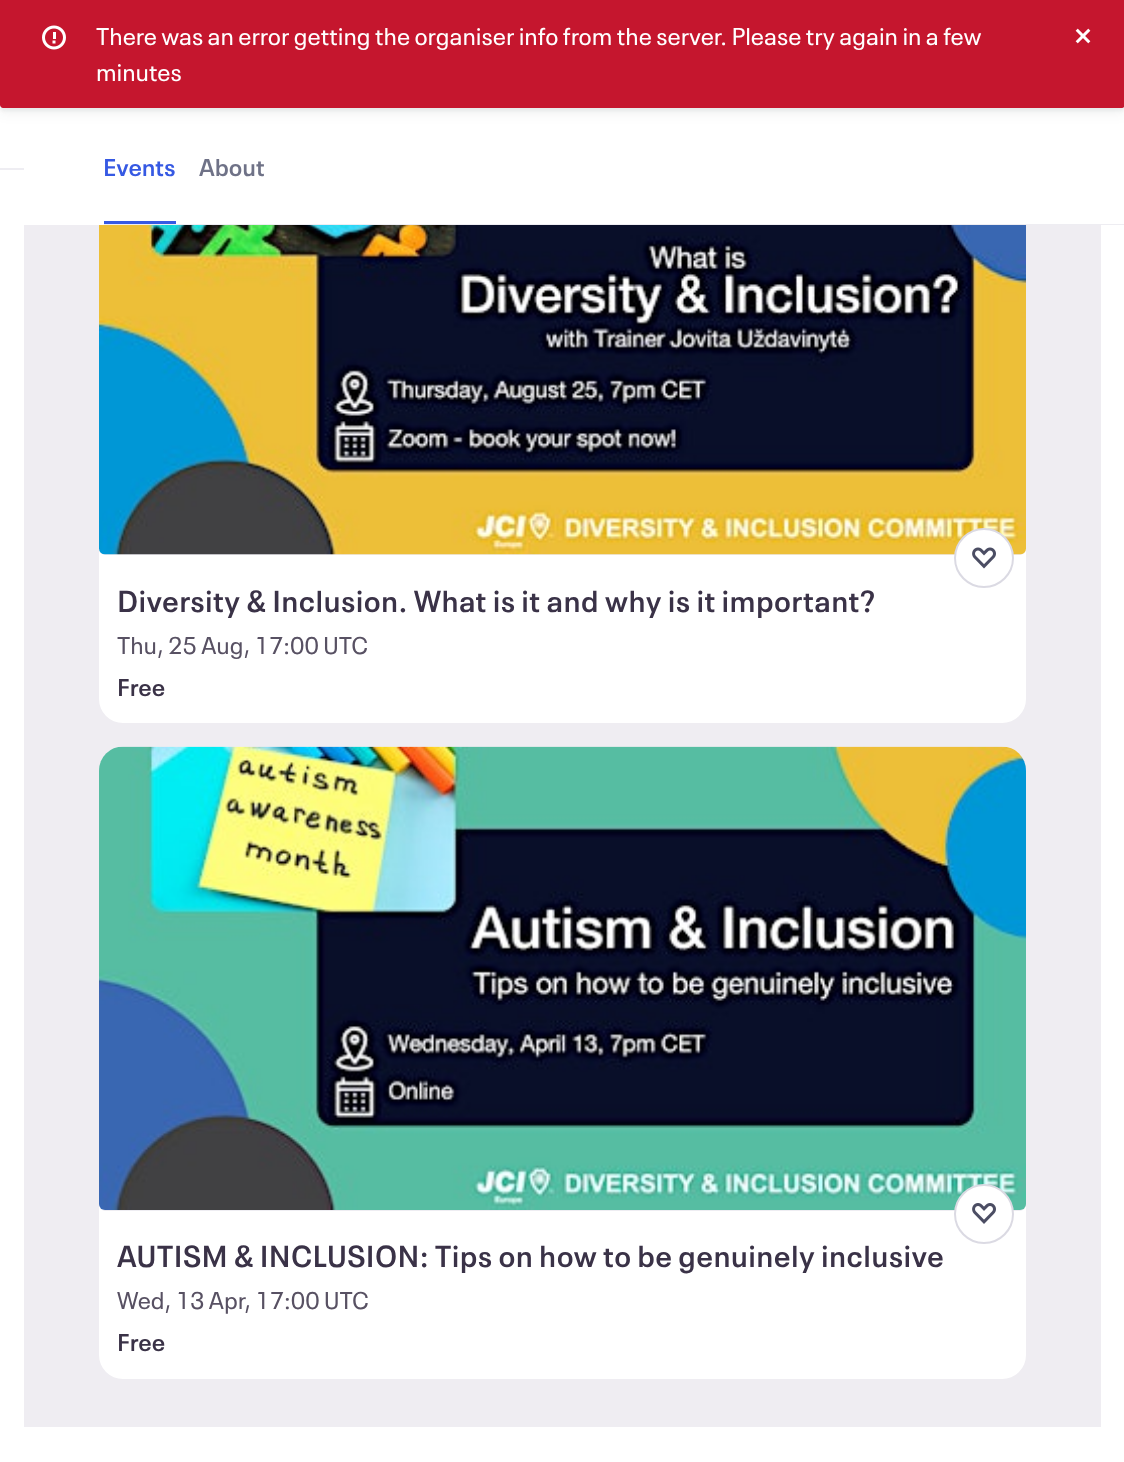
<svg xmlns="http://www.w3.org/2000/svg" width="1124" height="1462">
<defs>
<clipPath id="clip1"><rect x="99" y="92" width="927" height="463" rx="6"/></clipPath>
<clipPath id="clip2"><rect x="99" y="747" width="927" height="464" rx="6"/></clipPath>
</defs>
<rect width="100%" height="100%" fill="#fff"/>
<rect x="24" y="225" width="1077" height="1202" fill="#efedf2"/>
<rect x="99" y="92" width="927" height="631" rx="24" fill="#fff"/>
<g clip-path="url(#clip1)">
<path d="M123 92h879c13.5 0 24 10.5 24 24v433c0 3.5-2.5 6-6 6h-915c-3.5 0-6-2.5-6-6v-433c0-13.5 10.5-24 24-24z" fill="#eeedf2"/>
</g>
<rect x="99" y="107" width="927" height="118" fill="#fff"/>
<rect y="3" width="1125" height="108" rx="3" fill="#282c350f" filter="blur(1.5px)"/>
<rect y="6" width="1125" height="108" rx="3" fill="#282c350f" filter="blur(6px)"/>
<path d="M0 0h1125v105c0 1.5-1.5 3-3 3h-1119c-1.5 0-3-1.5-3-3z" fill="#c5162e"/>
<image x="42" y="25" width="24" height="25" href="media/1.png"/>
<text x="96" y="45" style="font-family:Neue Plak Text;font-size:24px;fill:#fff">There was an error getting the organiser info from the server. Please try again in a few</text>
<text x="96" y="81" style="font-family:Neue Plak Text;font-size:24px;fill:#fff">minutes</text>
<image x="1075" y="28" width="16" height="16" href="media/2.png"/>
<rect y="168" width="24" height="2" fill="#eeedf2"/>
<rect x="104" y="221" width="72" height="3" fill="#3659e3"/>
<text x="103" y="176" style="font-family:Neue Plak Text;font-size:24px;font-weight:600;fill:#3659e3">Events</text>
<text x="199" y="176" style="font-family:Neue Plak Text;font-size:24px;font-weight:600;fill:#6f7287">About</text>
<rect x="104" y="224" width="1020" height="1" fill="#eeedf2"/>
<image x="99" y="225" width="927" height="330" href="media/3.png"/>
<circle cx="984" cy="558" r="29" fill="#fff" stroke="#dbdae3" stroke-width="2"/>
<image x="972" y="547" width="24" height="22" href="media/4.png"/>
<text x="117" y="612" style="font-family:Neue Plak Text;font-size:30px;font-weight:600;letter-spacing:0.38px;fill:#3a3247">Diversity &amp; Inclusion. What is it and why is it important?</text>
<text x="117" y="654" style="font-family:Neue Plak Text;font-size:24px;fill:#585163">Thu, 25 Aug, 17:00 UTC</text>
<text x="117" y="696" style="font-family:Neue Plak Text;font-size:24px;font-weight:600;fill:#3a3247">Free</text>
<rect x="99" y="747" width="927" height="632" rx="24" fill="#fff"/>
<path d="M123 747h879c13.5 0 24 10.5 24 24v434c0 3.5-2.5 6-6 6h-915c-3.5 0-6-2.5-6-6v-434c0-13.5 10.5-24 24-24z" fill="#fff"/>
<g clip-path="url(#clip2)">
<path d="M123 747h879c13.5 0 24 10.5 24 24v434c0 3.5-2.5 6-6 6h-915c-3.5 0-6-2.5-6-6v-434c0-13.5 10.5-24 24-24z" fill="#eeedf2"/>
</g>
<image x="99" y="746" width="927" height="464" href="media/5.png"/>
<circle cx="984" cy="1214" r="29" fill="#fff" stroke="#dbdae3" stroke-width="2"/>
<image x="972" y="1203" width="24" height="21" href="media/6.png"/>
<text x="117" y="1267" style="font-family:Neue Plak Text;font-size:30px;font-weight:600;letter-spacing:0.38px;fill:#3a3247">AUTISM &amp; INCLUSION: Tips on how to be genuinely inclusive</text>
<text x="117" y="1309" style="font-family:Neue Plak Text;font-size:24px;fill:#585163">Wed, 13 Apr, 17:00 UTC</text>
<text x="117" y="1351" style="font-family:Neue Plak Text;font-size:24px;font-weight:600;fill:#3a3247">Free</text>
</svg>
